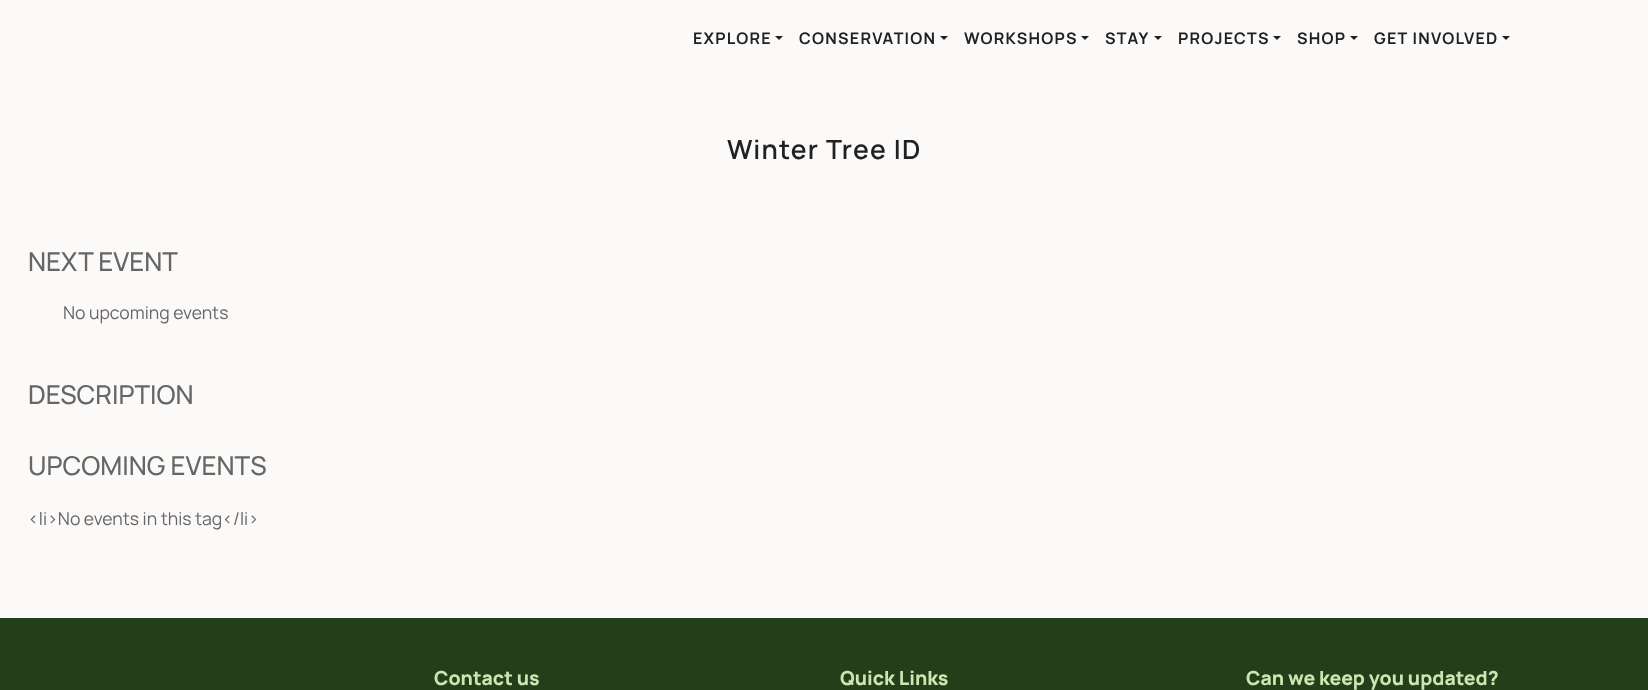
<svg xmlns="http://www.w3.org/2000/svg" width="1648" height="690">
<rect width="100%" height="100%" fill="#fcfaf9"/>
<text x="693" y="44" style="font-family:Manrope;font-size:16px;font-weight:bold;letter-spacing:1.25px;fill:#212121">EXPLORE</text>
<path d="M775 36h8l-4 4z" fill="#212121"/>
<text x="799" y="44" style="font-family:Manrope;font-size:16px;font-weight:bold;letter-spacing:1.25px;fill:#212121">CONSERVATION</text>
<path d="M940 36h8l-4 4z" fill="#212121"/>
<text x="964" y="44" style="font-family:Manrope;font-size:16px;font-weight:bold;letter-spacing:1.25px;fill:#212121">WORKSHOPS</text>
<path d="M1081 36h8l-4 4z" fill="#212121"/>
<text x="1105" y="44" style="font-family:Manrope;font-size:16px;font-weight:bold;letter-spacing:1.25px;fill:#212121">STAY</text>
<path d="M1154 36h8l-4 4z" fill="#212121"/>
<text x="1178" y="44" style="font-family:Manrope;font-size:16px;font-weight:bold;letter-spacing:1.25px;fill:#212121">PROJECTS</text>
<path d="M1273 36h8l-4 4z" fill="#212121"/>
<text x="1297" y="44" style="font-family:Manrope;font-size:16px;font-weight:bold;letter-spacing:1.25px;fill:#212121">SHOP</text>
<path d="M1350 36h8l-4 4z" fill="#212121"/>
<text x="1374" y="44" style="font-family:Manrope;font-size:16px;font-weight:bold;letter-spacing:1.25px;fill:#212121">GET INVOLVED</text>
<path d="M1502 36h8l-4 4z" fill="#212121"/>
<text x="727" y="159" style="font-family:Manrope;font-size:26.5px;font-weight:600;letter-spacing:1.25px;fill:#212121">Winter Tree ID</text>
<text x="28" y="271" style="font-family:Manrope;font-size:26px;font-weight:500;fill:#666">NEXT EVENT</text>
<text x="63" y="319" style="font-family:Manrope;font-size:17.6px;fill:#666">No upcoming events</text>
<text x="28" y="404" style="font-family:Manrope;font-size:26px;font-weight:500;fill:#666">DESCRIPTION</text>
<text x="28" y="475" style="font-family:Manrope;font-size:26px;font-weight:500;fill:#666">UPCOMING EVENTS</text>
<text x="28" y="525" style="font-family:Manrope;font-size:17.6px;fill:#666">&lt;li&gt;No events in this tag&lt;/li&gt;</text>
<rect y="618" width="1648" height="72" fill="#223f1a"/>
<text x="434" y="685" style="font-family:Manrope;font-size:19.4px;font-weight:800;fill:#cee5b2">Contact us</text>
<text x="840" y="685" style="font-family:Manrope;font-size:19.4px;font-weight:800;fill:#cee5b2">Quick Links</text>
<text x="1246" y="685" style="font-family:Manrope;font-size:19.4px;font-weight:800;fill:#cee5b2">Can we keep you updated?</text>
</svg>
